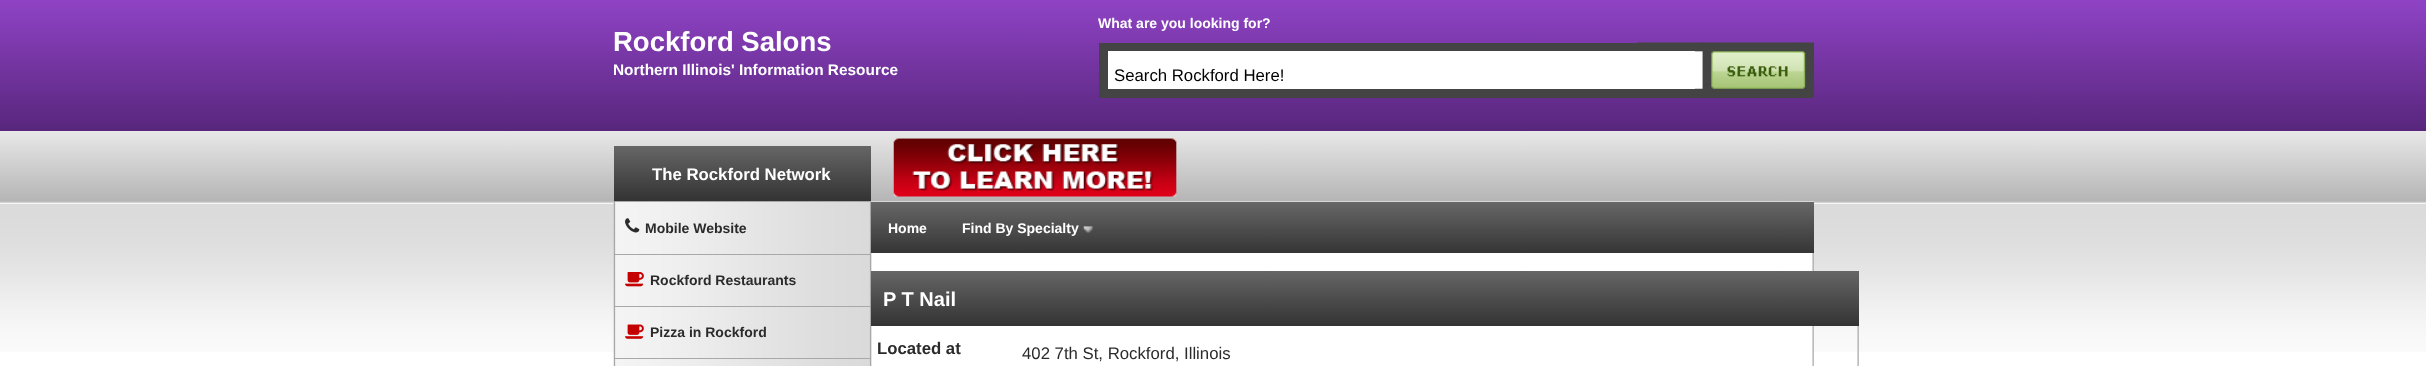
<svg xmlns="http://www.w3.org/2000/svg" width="2426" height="366">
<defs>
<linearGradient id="g1" gradientUnits="userSpaceOnUse" x1="1213" y1="0" x2="1213" y2="131"><stop offset="0" stop-color="#8f43c5"/><stop offset="1" stop-color="#58267c"/></linearGradient>
<linearGradient id="g2" gradientUnits="userSpaceOnUse" x1="1213" y1="131" x2="1213" y2="201"><stop offset="0" stop-color="#e8e8e8"/><stop offset="1" stop-color="#b5b5b5"/></linearGradient>
<linearGradient id="g3" gradientUnits="userSpaceOnUse" x1="743" y1="146" x2="743" y2="201"><stop offset="0" stop-color="#666"/><stop offset="1" stop-color="#333"/></linearGradient>
<linearGradient id="g4" gradientUnits="userSpaceOnUse" x1="1343" y1="201" x2="1343" y2="253"><stop offset="0" stop-color="#686868"/><stop offset="1" stop-color="#353535"/></linearGradient>
<linearGradient id="g5" gradientUnits="userSpaceOnUse" x1="1365" y1="271" x2="1365" y2="326"><stop offset="0" stop-color="#666"/><stop offset="1" stop-color="#333"/></linearGradient>
</defs>
<rect width="100%" height="100%" fill="#fff"/>
<rect width="2426" height="131" fill="url(#g1)"/>
<text x="613" y="51" style="font-family:Liberation Sans;font-size:27.5px;font-weight:bold;fill:#fff">Rockford Salons</text>
<text x="613" y="75" style="font-family:Liberation Sans;font-size:15.4px;font-weight:bold;fill:#fff">Northern Illinois' Information Resource</text>
<text x="1098" y="28" style="font-family:Liberation Sans;font-size:14px;font-weight:bold;fill:#fff">What are you looking for?</text>
<rect x="1099" y="43" width="715" height="55" fill="#444"/>
<image x="1637" y="42" width="177" height="47" href="media/1.png"/>
<rect x="1108" y="51" width="587" height="38" fill="#fff"/>
<text x="1114" y="81" style="font-family:Liberation Sans;font-size:16.75px;fill:#000">Search Rockford Here!</text>
<rect y="131" width="2426" height="70" fill="url(#g2)"/>
<rect x="614" y="146" width="257" height="55" fill="url(#g3)"/>
<text x="652" y="180" style="font-family:Liberation Sans;font-size:16.75px;font-weight:bold;fill:#fff">The Rockford Network</text>
<image x="893" y="138" width="284" height="59" href="media/2.png"/>
<image x="0" y="201" width="2426" height="151" href="media/3.png"/>
<image x="613" y="201" width="1201" height="165" href="media/4.png"/>
<rect x="614" y="201" width="257" height="1" fill="#a8a8a8"/>
<rect x="870" y="201" width="1" height="53" fill="#a8a8a8"/>
<rect x="614" y="201" width="1" height="53" fill="#a8a8a8"/>
<image x="625" y="218" width="15" height="15" href="media/5.png"/>
<text x="645" y="233" style="font-family:Liberation Sans;font-size:14px;font-weight:bold;fill:#2b2b2b">Mobile Website</text>
<rect x="614" y="254" width="257" height="1" fill="#a8a8a8"/>
<rect x="870" y="254" width="1" height="52" fill="#a8a8a8"/>
<rect x="614" y="254" width="1" height="52" fill="#a8a8a8"/>
<image x="625" y="272" width="19" height="15" href="media/6.png"/>
<text x="650" y="285" style="font-family:Liberation Sans;font-size:14px;font-weight:bold;fill:#2b2b2b">Rockford Restaurants</text>
<rect x="614" y="306" width="257" height="1" fill="#a8a8a8"/>
<rect x="870" y="306" width="1" height="52" fill="#a8a8a8"/>
<rect x="614" y="306" width="1" height="52" fill="#a8a8a8"/>
<image x="625" y="324" width="19" height="15" href="media/7.png"/>
<text x="650" y="337" style="font-family:Liberation Sans;font-size:14px;font-weight:bold;fill:#2b2b2b">Pizza in Rockford</text>
<rect x="614" y="358" width="257" height="1" fill="#a8a8a8"/>
<rect x="870" y="358" width="1" height="8" fill="#a8a8a8"/>
<rect x="614" y="358" width="1" height="8" fill="#a8a8a8"/>
<rect x="871" y="202" width="943" height="51" fill="url(#g4)"/>
<rect x="871" y="201" width="943" height="1" fill="#d7d7d7"/>
<text x="888" y="233" style="font-family:Liberation Sans;font-size:14px;font-weight:bold;fill:#fff">Home</text>
<image x="1083" y="226" width="10" height="7" href="media/8.png"/>
<text x="962" y="233" style="font-family:Liberation Sans;font-size:14px;font-weight:bold;fill:#fff">Find By Specialty</text>
<image x="1857" y="326" width="2" height="40" href="media/9.png"/>
<rect x="871" y="271" width="988" height="55" fill="url(#g5)"/>
<text x="883" y="306" style="font-family:Liberation Sans;font-size:20px;font-weight:bold;fill:#fff">P T Nail</text>
<text x="877" y="354" style="font-family:Liberation Sans;font-size:16.75px;font-weight:bold;fill:#2b2b2b">Located at</text>
<text x="1022" y="359" style="font-family:Liberation Sans;font-size:16.75px;fill:#2b2b2b">402 7th St, Rockford, Illinois</text>
</svg>
